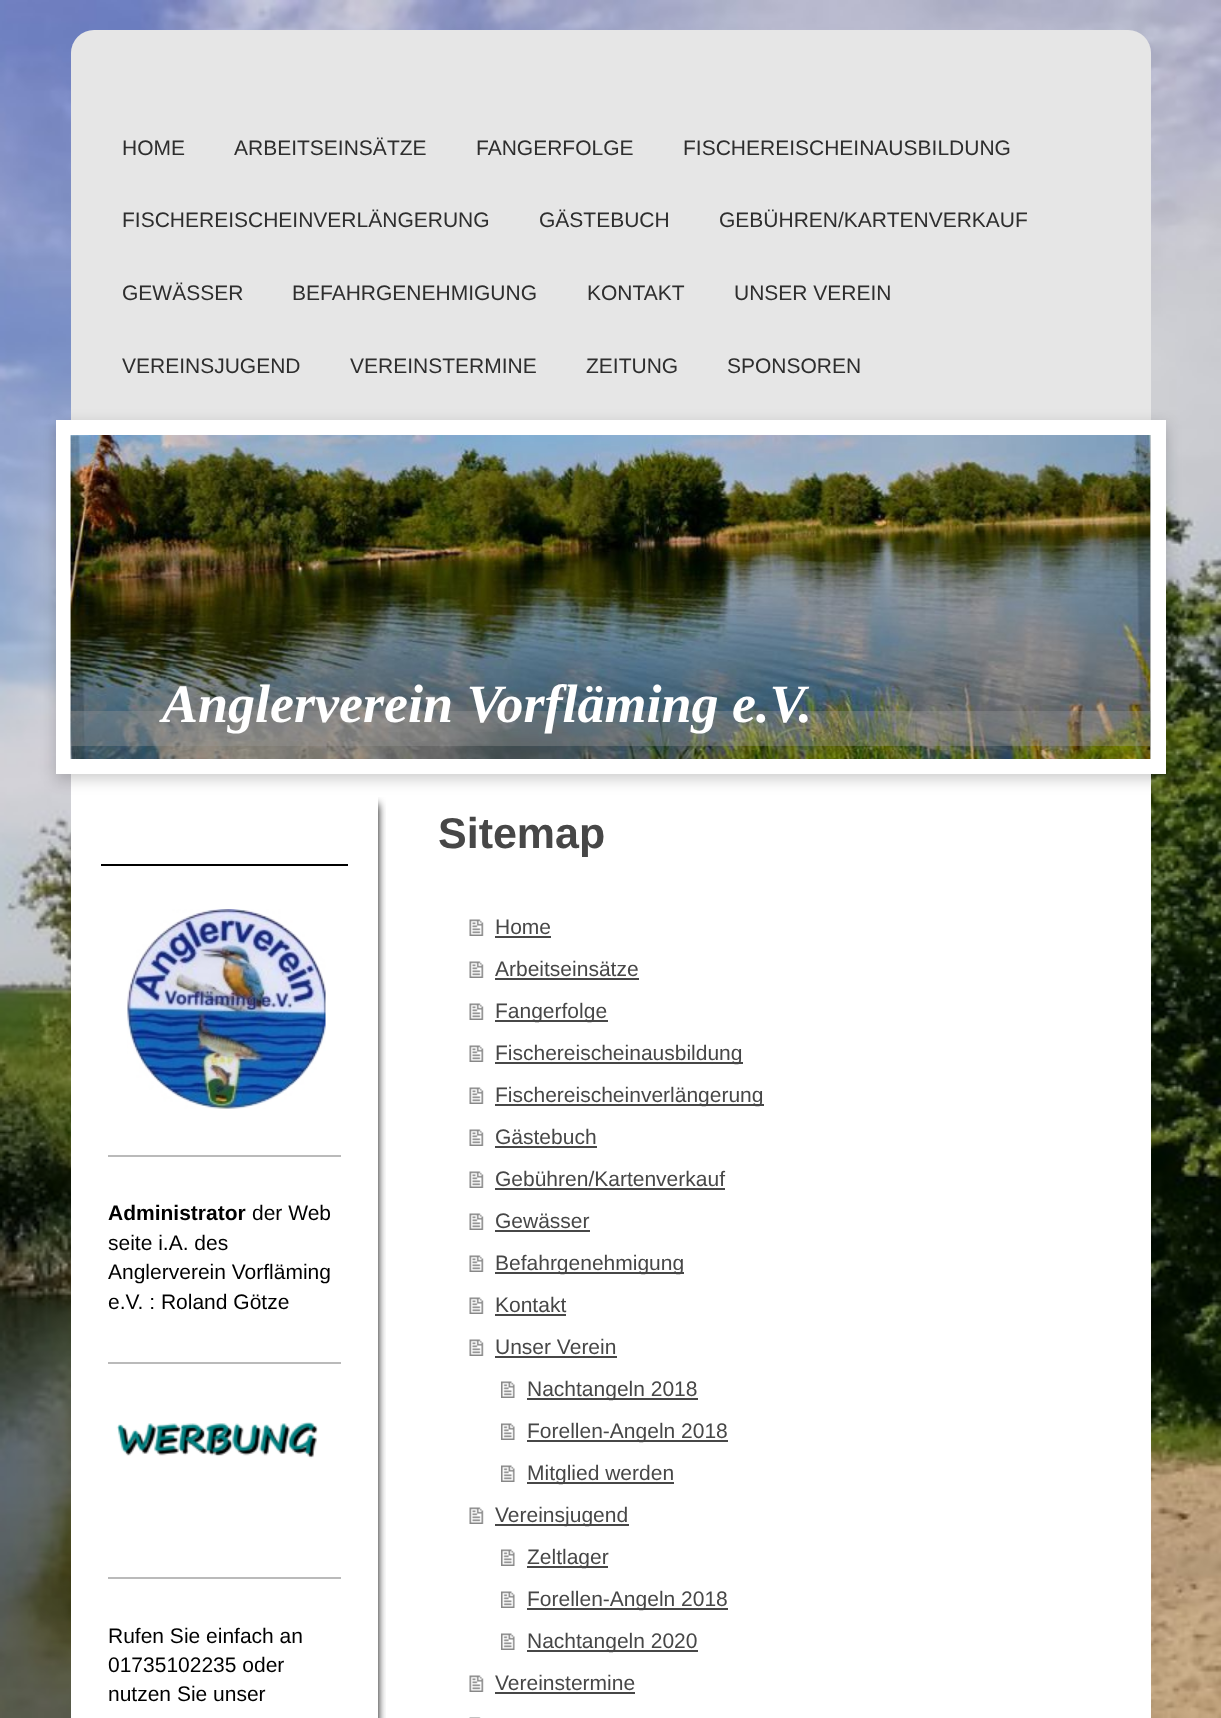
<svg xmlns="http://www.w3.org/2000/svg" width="1221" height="1718">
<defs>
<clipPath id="clip1"><rect x="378" y="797" width="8" height="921"/></clipPath>
</defs>
<rect width="100%" height="100%" fill="#fff"/>
<image x="0" y="0" width="1221" height="1718" href="media/1.png"/>
<rect x="71" y="30" width="1080" height="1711" rx="23" fill="#e6e6e6"/>
<text x="122" y="155" style="font-family:Liberation Sans;font-size:21px;fill:#2e2e2e">HOME</text>
<text x="234" y="155" style="font-family:Liberation Sans;font-size:21px;fill:#2e2e2e">ARBEITSEINSÄTZE</text>
<text x="476" y="155" style="font-family:Liberation Sans;font-size:21px;fill:#2e2e2e">FANGERFOLGE</text>
<text x="683" y="155" style="font-family:Liberation Sans;font-size:21px;fill:#2e2e2e">FISCHEREISCHEINAUSBILDUNG</text>
<text x="122" y="227" style="font-family:Liberation Sans;font-size:21px;fill:#2e2e2e">FISCHEREISCHEINVERLÄNGERUNG</text>
<text x="539" y="227" style="font-family:Liberation Sans;font-size:21px;fill:#2e2e2e">GÄSTEBUCH</text>
<text x="719" y="227" style="font-family:Liberation Sans;font-size:21px;fill:#2e2e2e">GEBÜHREN/KARTENVERKAUF</text>
<text x="122" y="300" style="font-family:Liberation Sans;font-size:21px;fill:#2e2e2e">GEWÄSSER</text>
<text x="292" y="300" style="font-family:Liberation Sans;font-size:21px;fill:#2e2e2e">BEFAHRGENEHMIGUNG</text>
<text x="587" y="300" style="font-family:Liberation Sans;font-size:21px;fill:#2e2e2e">KONTAKT</text>
<text x="734" y="300" style="font-family:Liberation Sans;font-size:21px;fill:#2e2e2e">UNSER VEREIN</text>
<text x="122" y="373" style="font-family:Liberation Sans;font-size:21px;fill:#2e2e2e">VEREINSJUGEND</text>
<text x="350" y="373" style="font-family:Liberation Sans;font-size:21px;fill:#2e2e2e">VEREINSTERMINE</text>
<text x="586" y="373" style="font-family:Liberation Sans;font-size:21px;fill:#2e2e2e">ZEITUNG</text>
<text x="727" y="373" style="font-family:Liberation Sans;font-size:21px;fill:#2e2e2e">SPONSOREN</text>
<rect x="71" y="774" width="1080" height="944" fill="#fff"/>
<rect x="56" y="425" width="1110" height="354" fill="#00000033" filter="blur(7.5px)"/>
<rect x="63.5" y="427.5" width="1095" height="339" fill="none" stroke="#fff" stroke-width="15"/>
<image x="70" y="435" width="1" height="324" href="media/2.png"/>
<rect x="1150" y="435" width="1" height="324" fill="#ccc"/>
<image x="70" y="435" width="1081" height="324" href="media/3.png"/>
<rect x="71" y="711" width="1080" height="35" fill="#9999995c"/>
<text x="162" y="722" style="font-family:Liberation Serif;font-size:54px;font-weight:bold;font-style:italic;fill:#fff">Anglerverein Vorfläming e.V.</text>
<g clip-path="url(#clip1)">
<rect x="131" y="804" width="247" height="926" fill="#000" filter="blur(4px)"/>
</g>
<text x="438" y="848" style="font-family:Liberation Sans;font-size:43px;font-weight:bold;fill:#474747">Sitemap</text>
<image x="469" y="919" width="15" height="17" href="media/4.png"/>
<text x="495" y="934" style="font-family:Liberation Sans;font-size:21px;fill:#474747">Home</text>
<rect x="495" y="936" width="56" height="2" fill="#474747"/>
<image x="469" y="961" width="15" height="17" href="media/4.png"/>
<text x="495" y="976" style="font-family:Liberation Sans;font-size:21px;fill:#474747">Arbeitseinsätze</text>
<rect x="495" y="978" width="144" height="2" fill="#474747"/>
<image x="469" y="1003" width="15" height="17" href="media/4.png"/>
<rect x="495" y="1020" width="113" height="2" fill="#474747"/>
<text x="495" y="1018" style="font-family:Liberation Sans;font-size:21px;fill:#474747">Fangerfolge</text>
<image x="469" y="1045" width="15" height="17" href="media/4.png"/>
<rect x="495" y="1062" width="248" height="2" fill="#474747"/>
<text x="495" y="1060" style="font-family:Liberation Sans;font-size:21px;fill:#474747">Fischereischeinausbildung</text>
<image x="469" y="1087" width="15" height="17" href="media/4.png"/>
<rect x="495" y="1104" width="269" height="2" fill="#474747"/>
<text x="495" y="1102" style="font-family:Liberation Sans;font-size:21px;fill:#474747">Fischereischeinverlängerung</text>
<image x="469" y="1129" width="15" height="17" href="media/4.png"/>
<text x="495" y="1144" style="font-family:Liberation Sans;font-size:21px;fill:#474747">Gästebuch</text>
<rect x="495" y="1146" width="102" height="2" fill="#474747"/>
<image x="469" y="1171" width="15" height="17" href="media/4.png"/>
<text x="495" y="1186" style="font-family:Liberation Sans;font-size:21px;fill:#474747">Gebühren/Kartenverkauf</text>
<rect x="495" y="1188" width="230" height="2" fill="#474747"/>
<image x="469" y="1213" width="15" height="17" href="media/4.png"/>
<text x="495" y="1228" style="font-family:Liberation Sans;font-size:21px;fill:#474747">Gewässer</text>
<rect x="495" y="1230" width="95" height="2" fill="#474747"/>
<image x="469" y="1255" width="15" height="17" href="media/4.png"/>
<rect x="495" y="1272" width="189" height="2" fill="#474747"/>
<text x="495" y="1270" style="font-family:Liberation Sans;font-size:21px;fill:#474747">Befahrgenehmigung</text>
<image x="469" y="1297" width="15" height="17" href="media/4.png"/>
<text x="495" y="1312" style="font-family:Liberation Sans;font-size:21px;fill:#474747">Kontakt</text>
<rect x="495" y="1314" width="71" height="2" fill="#474747"/>
<image x="469" y="1339" width="15" height="17" href="media/4.png"/>
<text x="495" y="1354" style="font-family:Liberation Sans;font-size:21px;fill:#474747">Unser Verein</text>
<rect x="495" y="1356" width="122" height="2" fill="#474747"/>
<image x="501" y="1381" width="14" height="17" href="media/5.png"/>
<rect x="527" y="1398" width="171" height="2" fill="#474747"/>
<text x="527" y="1396" style="font-family:Liberation Sans;font-size:21px;fill:#474747">Nachtangeln 2018</text>
<image x="501" y="1423" width="14" height="17" href="media/5.png"/>
<rect x="527" y="1440" width="201" height="2" fill="#474747"/>
<text x="527" y="1438" style="font-family:Liberation Sans;font-size:21px;fill:#474747">Forellen-Angeln 2018</text>
<image x="501" y="1465" width="14" height="17" href="media/5.png"/>
<rect x="527" y="1482" width="147" height="2" fill="#474747"/>
<text x="527" y="1480" style="font-family:Liberation Sans;font-size:21px;fill:#474747">Mitglied werden</text>
<image x="469" y="1507" width="15" height="17" href="media/4.png"/>
<rect x="495" y="1524" width="134" height="2" fill="#474747"/>
<text x="495" y="1522" style="font-family:Liberation Sans;font-size:21px;fill:#474747">Vereinsjugend</text>
<image x="501" y="1549" width="14" height="17" href="media/5.png"/>
<rect x="527" y="1566" width="81" height="2" fill="#474747"/>
<text x="527" y="1564" style="font-family:Liberation Sans;font-size:21px;fill:#474747">Zeltlager</text>
<image x="501" y="1591" width="14" height="17" href="media/5.png"/>
<rect x="527" y="1608" width="201" height="2" fill="#474747"/>
<text x="527" y="1606" style="font-family:Liberation Sans;font-size:21px;fill:#474747">Forellen-Angeln 2018</text>
<image x="501" y="1633" width="14" height="17" href="media/5.png"/>
<rect x="527" y="1650" width="171" height="2" fill="#474747"/>
<text x="527" y="1648" style="font-family:Liberation Sans;font-size:21px;fill:#474747">Nachtangeln 2020</text>
<image x="469" y="1675" width="15" height="17" href="media/4.png"/>
<text x="495" y="1690" style="font-family:Liberation Sans;font-size:21px;fill:#474747">Vereinstermine</text>
<rect x="495" y="1692" width="140" height="2" fill="#474747"/>
<image x="469" y="1717" width="12" height="1" href="media/6.png"/>
<rect x="101" y="864" width="247" height="2" fill="#000"/>
<image x="127" y="909" width="199" height="200" href="media/7.png"/>
<rect x="108" y="1155" width="233" height="2" fill="#bababa"/>
<text x="108" y="1220" style="font-family:Liberation Sans;font-size:21px;font-weight:bold;fill:#000">Administrator</text>
<text x="252" y="1220" style="font-family:Liberation Sans;font-size:21px;fill:#000">der Web</text>
<text x="108" y="1250" style="font-family:Liberation Sans;font-size:21px;fill:#000">seite i.A. des</text>
<text x="108" y="1279" style="font-family:Liberation Sans;font-size:21px;fill:#000">Anglerverein Vorfläming</text>
<text x="108" y="1309" style="font-family:Liberation Sans;font-size:21px;fill:#000">e.V. : Roland Götze</text>
<rect x="108" y="1362" width="233" height="2" fill="#bababa"/>
<image x="116" y="1422" width="202" height="37" href="media/8.png"/>
<rect x="108" y="1577" width="233" height="2" fill="#bababa"/>
<text x="108" y="1643" style="font-family:Liberation Sans;font-size:21px;fill:#000">Rufen Sie einfach an</text>
<text x="108" y="1672" style="font-family:Liberation Sans;font-size:21px;fill:#000">01735102235 oder</text>
<text x="108" y="1701" style="font-family:Liberation Sans;font-size:21px;fill:#000">nutzen Sie unser</text>
</svg>
